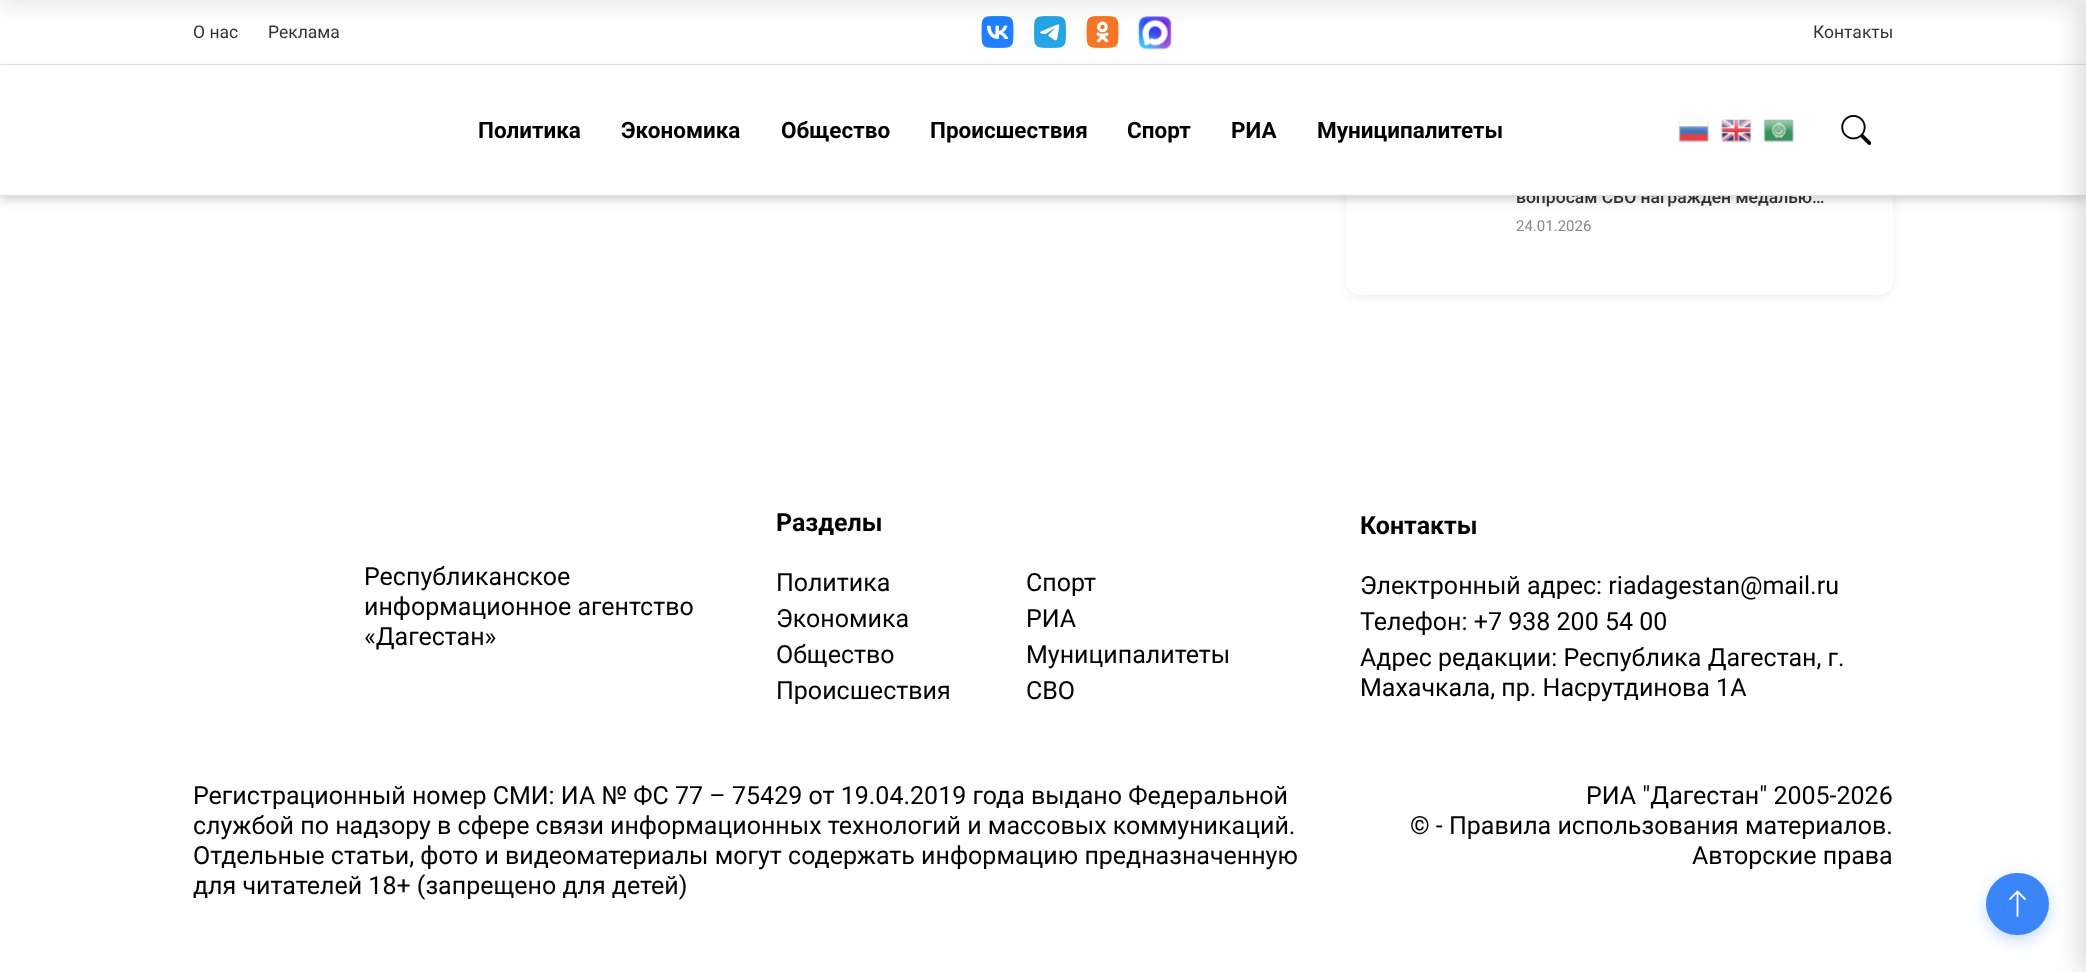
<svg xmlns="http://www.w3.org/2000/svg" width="2086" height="972">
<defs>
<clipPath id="clip1"><path d="M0 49h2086v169h-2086zm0 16h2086v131h-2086z" clip-rule="evenodd"/></clipPath>
</defs>
<rect width="100%" height="100%" fill="#fff"/>
<rect x="1346" y="-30" width="547" height="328" rx="15" fill="#0000000f" filter="blur(5px)"/>
<rect x="1346" y="-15" width="547" height="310" rx="15" fill="#fff"/>
<rect y="3" width="2086" height="196" fill="#0000001a" filter="blur(6px)"/>
<text x="1516" y="203" style="font-family:Roboto;font-size:17.5px;font-weight:500;fill:#333">вопросам СВО награжден медалью…</text>
<rect width="2086" height="195" fill="#fff"/>
<image x="981" y="16" width="33" height="32" href="media/1.png"/>
<image x="1034" y="16" width="32" height="32" href="media/2.png"/>
<image x="1086" y="16" width="33" height="32" href="media/3.png"/>
<image x="1138" y="16" width="34" height="34" href="media/4.png"/>
<rect y="-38" width="2086" height="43" fill="#0000001a" filter="blur(12.5px)"/>
<rect y="64" width="2086" height="1" fill="#e5e5e5"/>
<text x="193" y="38" style="font-family:Roboto;font-size:17.5px;fill:#333">О нас</text>
<text x="268" y="38" style="font-family:Roboto;font-size:17.5px;fill:#333">Реклама</text>
<text x="1813" y="38" style="font-family:Roboto;font-size:17.5px;fill:#333">Контакты</text>
<g clip-path="url(#clip1)">
<rect y="68" width="2086" height="131" fill="#0000001a" filter="blur(6px)"/>
</g>
<rect y="195" width="2086" height="1" fill="#e0e0e0"/>
<rect x="2080" width="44" height="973" fill="#00000026" filter="blur(12.5px)"/>
<text x="478" y="138" style="font-family:Roboto;font-size:22.5px;font-weight:bold;fill:#000">Политика</text>
<text x="621" y="138" style="font-family:Roboto;font-size:22.5px;font-weight:bold;fill:#000">Экономика</text>
<text x="781" y="138" style="font-family:Roboto;font-size:22.5px;font-weight:bold;fill:#000">Общество</text>
<text x="930" y="138" style="font-family:Roboto;font-size:22.5px;font-weight:bold;fill:#000">Происшествия</text>
<text x="1127" y="138" style="font-family:Roboto;font-size:22.5px;font-weight:bold;fill:#000">Спорт</text>
<text x="1231" y="138" style="font-family:Roboto;font-size:22.5px;font-weight:bold;fill:#000">РИА</text>
<text x="1317" y="138" style="font-family:Roboto;font-size:22.5px;font-weight:bold;fill:#000">Муниципалитеты</text>
<image x="1678" y="119" width="31" height="24" href="media/5.png"/>
<image x="1721" y="119" width="31" height="24" href="media/6.png"/>
<image x="1763" y="119" width="31" height="24" href="media/7.png"/>
<image x="1841" y="115" width="30" height="30" href="media/8.png"/>
<text x="1516" y="231" style="font-family:Roboto;font-size:15px;fill:#888">24.01.2026</text>
<text x="364" y="585" style="font-family:Roboto;font-size:25px;fill:#000">Республиканское</text>
<text x="364" y="615" style="font-family:Roboto;font-size:25px;fill:#000">информационное агентство</text>
<text x="364" y="645" style="font-family:Roboto;font-size:25px;fill:#000">«Дагестан»</text>
<text x="776" y="531" style="font-family:Roboto;font-size:25px;font-weight:bold;fill:#000">Разделы</text>
<text x="776" y="591" style="font-family:Roboto;font-size:25px;fill:#000">Политика</text>
<text x="776" y="627" style="font-family:Roboto;font-size:25px;fill:#000">Экономика</text>
<text x="776" y="663" style="font-family:Roboto;font-size:25px;fill:#000">Общество</text>
<text x="776" y="699" style="font-family:Roboto;font-size:25px;fill:#000">Происшествия</text>
<text x="1026" y="591" style="font-family:Roboto;font-size:25px;fill:#000">Спорт</text>
<text x="1026" y="627" style="font-family:Roboto;font-size:25px;fill:#000">РИА</text>
<text x="1026" y="663" style="font-family:Roboto;font-size:25px;fill:#000">Муниципалитеты</text>
<text x="1026" y="699" style="font-family:Roboto;font-size:25px;fill:#000">СВО</text>
<text x="1360" y="534" style="font-family:Roboto;font-size:25px;font-weight:bold;fill:#000">Контакты</text>
<text x="1360" y="594" style="font-family:Roboto;font-size:25px;fill:#000">Электронный адрес: riadagestan@mail.ru</text>
<text x="1360" y="630" style="font-family:Roboto;font-size:25px;fill:#000">Телефон: +7 938 200 54 00</text>
<text x="1360" y="666" style="font-family:Roboto;font-size:25px;fill:#000">Адрес редакции: Республика Дагестан, г.</text>
<text x="1360" y="696" style="font-family:Roboto;font-size:25px;fill:#000">Махачкала, пр. Насрутдинова 1А</text>
<text x="193" y="804" style="font-family:Roboto;font-size:25px;fill:#000">Регистрационный номер СМИ: ИА № ФС 77 – 75429 от 19.04.2019 года выдано Федеральной</text>
<text x="193" y="834" style="font-family:Roboto;font-size:25px;fill:#000">службой по надзору в сфере связи информационных технологий и массовых коммуникаций.</text>
<text x="193" y="864" style="font-family:Roboto;font-size:25px;fill:#000">Отдельные статьи, фото и видеоматериалы могут содержать информацию предназначенную</text>
<text x="193" y="894" style="font-family:Roboto;font-size:25px;fill:#000">для читателей 18+ (запрещено для детей)</text>
<text x="1586" y="804" style="font-family:Roboto;font-size:25px;fill:#000">РИА "Дагестан" 2005-2026</text>
<text x="1410" y="834" style="font-family:Roboto;font-size:25px;fill:#000">© - Правила использования материалов.</text>
<text x="1692" y="864" style="font-family:Roboto;font-size:25px;fill:#000">Авторские права</text>
<rect x="1986" y="878" width="63" height="62" rx="31" fill="#3a86f84d" filter="blur(7.5px)"/>
<rect x="1986" y="873" width="63" height="62" rx="31" fill="#3a86f8"/>
<image x="2009" y="890" width="17" height="27" href="media/9.png"/>
</svg>
